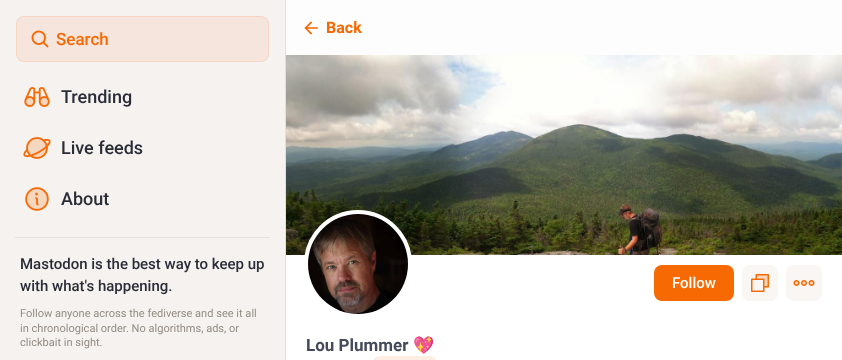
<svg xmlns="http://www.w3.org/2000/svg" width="842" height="360">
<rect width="100%" height="100%" fill="#f5f2ef"/>
<rect x="16" y="16" width="253" height="46" rx="8" fill="#f6e5dd"/>
<rect x="16.5" y="16.5" width="252" height="45" rx="7.5" fill="none" stroke="#f769021f"/>
<image x="31" y="30" width="18" height="18" href="media/1.png"/>
<text x="56" y="45" style="font-family:Roboto;font-size:17px;font-weight:500;fill:#f76902">Search</text>
<image x="24" y="87" width="26" height="20" href="media/2.png"/>
<text x="61" y="103" style="font-family:Roboto;font-size:18px;font-weight:500;fill:#2a2d37">Trending</text>
<image x="23" y="137" width="28" height="22" href="media/3.png"/>
<text x="61" y="154" style="font-family:Roboto;font-size:18px;font-weight:500;fill:#2a2d37">Live feeds</text>
<image x="25" y="187" width="24" height="24" href="media/4.png"/>
<text x="61" y="205" style="font-family:Roboto;font-size:18px;font-weight:500;fill:#2a2d37">About</text>
<rect x="15" y="237" width="255" height="1" fill="#e3e0dd"/>
<text x="20" y="269" style="font-family:Roboto;font-size:15px;font-weight:500;fill:#2a2d37">Mastodon is the best way to keep up</text>
<text x="20" y="291" style="font-family:Roboto;font-size:15px;font-weight:500;fill:#2a2d37">with what's happening.</text>
<text x="20" y="317" style="font-family:Roboto;font-size:11.05px;fill:#948c84">Follow anyone across the fediverse and see it all</text>
<text x="20" y="332" style="font-family:Roboto;font-size:11.05px;fill:#948c84">in chronological order. No algorithms, ads, or</text>
<text x="20" y="346" style="font-family:Roboto;font-size:11.05px;fill:#948c84">clickbait in sight.</text>
<rect x="286" width="556" height="55" fill="#fefdfd"/>
<image x="304" y="21" width="14" height="14" href="media/5.png"/>
<text x="326" y="33" style="font-family:Roboto;font-size:16px;font-weight:bold;fill:#f76902">Back</text>
<rect x="286" y="255" width="556" height="105" fill="#fff"/>
<rect x="285" width="1" height="360" fill="#e1dde4"/>
<image x="286" y="55" width="556" height="200" href="media/6.png"/>
<circle cx="358" cy="264" r="52" fill="#fff" stroke="#fff" stroke-width="4"/>
<image x="308" y="214" width="100" height="100" href="media/7.png"/>
<rect x="654" y="265" width="80" height="36" rx="8" fill="#f76902"/>
<text x="672" y="288" style="font-family:Roboto;font-size:15px;font-weight:500;fill:#fff">Follow</text>
<rect x="742" y="265" width="36" height="36" rx="8" fill="#f9f6f4"/>
<image x="751" y="274" width="18" height="18" href="media/8.png"/>
<rect x="786" y="265" width="36" height="36" rx="8" fill="#f9f6f4"/>
<image x="793" y="280" width="22" height="6" href="media/9.png"/>
<text x="306" y="351" style="font-family:Roboto;font-size:17px;font-weight:bold;fill:#444a5a">Lou Plummer</text>
<text x="413" y="351" style="font-family:Noto Color Emoji;font-size:17px;font-weight:bold;fill:#444a5a">💖</text>
<rect x="373" y="356" width="64" height="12" rx="8" fill="#feede1"/>
</svg>
